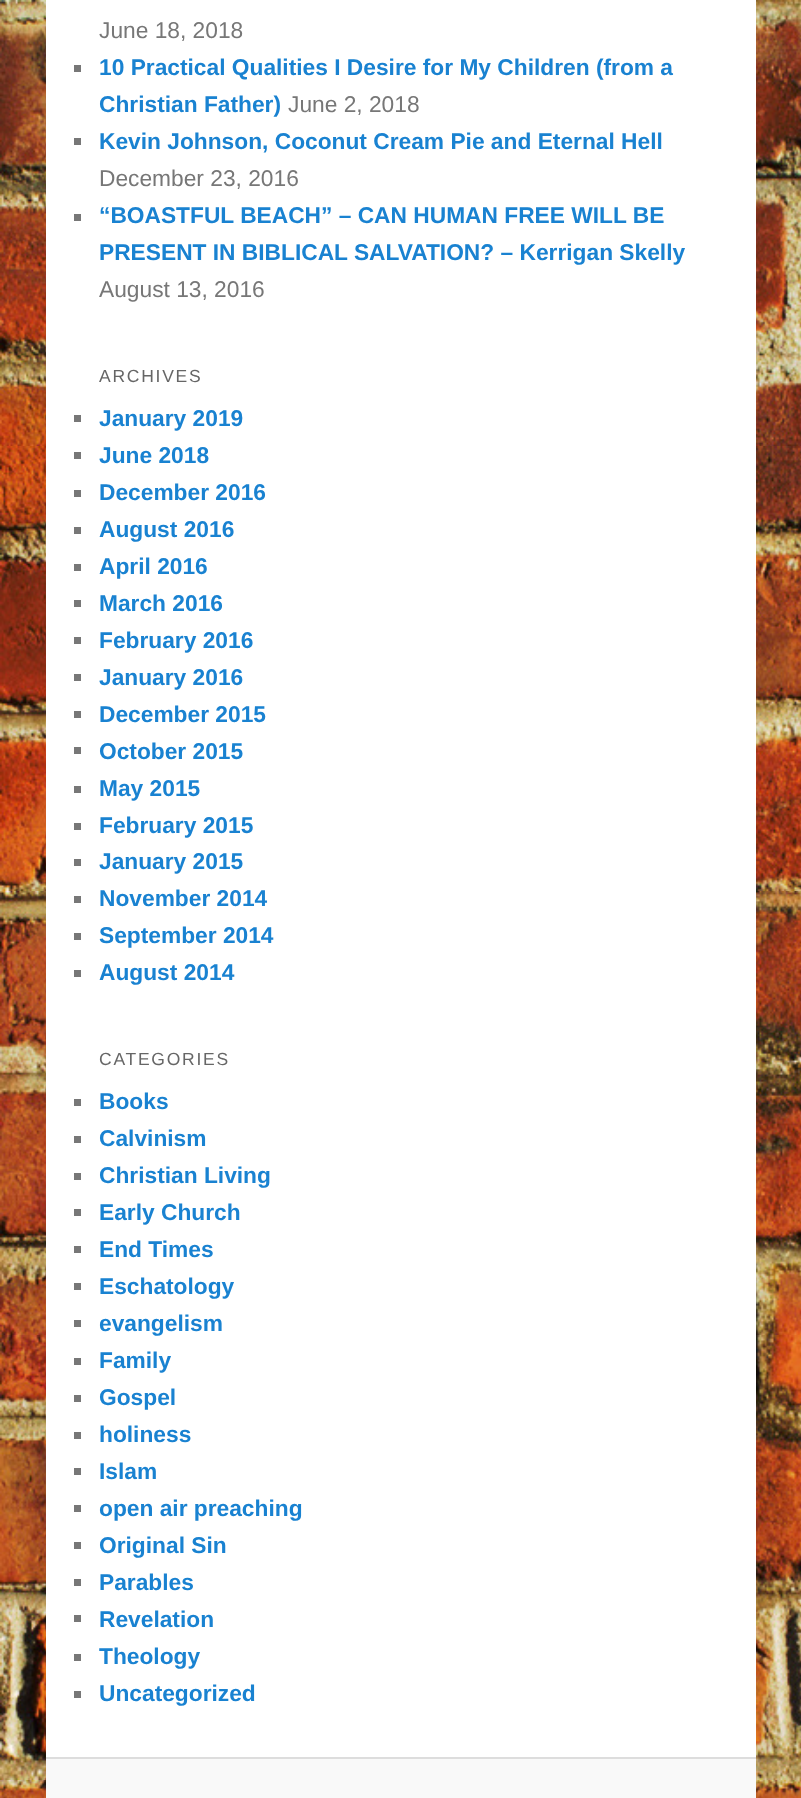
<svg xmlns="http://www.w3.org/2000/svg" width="801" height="1798">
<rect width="100%" height="100%" fill="#fff"/>
<image x="0" y="0" width="801" height="1798" href="media/1.png"/>
<rect x="46" width="710" height="1757" fill="#fff"/>
<text x="99" y="38" style="font-family:Liberation Sans;font-size:22.75px;fill:#777">June 18, 2018</text>
<rect x="74" y="65" width="7" height="7" fill="#777"/>
<text x="99" y="75" style="font-family:Liberation Sans;font-size:22.75px;font-weight:bold;fill:#1982d1">10 Practical Qualities I Desire for My Children (from a</text>
<text x="99" y="112" style="font-family:Liberation Sans;font-size:22.75px;font-weight:bold;fill:#1982d1">Christian Father)</text>
<text x="288" y="112" style="font-family:Liberation Sans;font-size:22.75px;fill:#777">June 2, 2018</text>
<rect x="74" y="138" width="7" height="7" fill="#777"/>
<text x="99" y="149" style="font-family:Liberation Sans;font-size:22.75px;font-weight:bold;fill:#1982d1">Kevin Johnson, Coconut Cream Pie and Eternal Hell</text>
<text x="99" y="186" style="font-family:Liberation Sans;font-size:22.75px;fill:#777">December 23, 2016</text>
<rect x="74" y="214" width="7" height="7" fill="#777"/>
<text x="99" y="223" style="font-family:Liberation Sans;font-size:22.75px;font-weight:bold;fill:#1982d1">“BOASTFUL BEACH” – CAN HUMAN FREE WILL BE</text>
<text x="99" y="260" style="font-family:Liberation Sans;font-size:22.75px;font-weight:bold;fill:#1982d1">PRESENT IN BIBLICAL SALVATION? – Kerrigan Skelly</text>
<text x="99" y="297" style="font-family:Liberation Sans;font-size:22.75px;fill:#777">August 13, 2016</text>
<text x="99" y="382" style="font-family:Liberation Sans;font-size:17.5px;letter-spacing:1.75px;fill:#666">ARCHIVES</text>
<rect x="74" y="415" width="7" height="7" fill="#777"/>
<text x="99" y="426" style="font-family:Liberation Sans;font-size:22.75px;font-weight:bold;fill:#1982d1">January 2019</text>
<rect x="74" y="452" width="7" height="7" fill="#777"/>
<text x="99" y="463" style="font-family:Liberation Sans;font-size:22.75px;font-weight:bold;fill:#1982d1">June 2018</text>
<rect x="74" y="490" width="7" height="7" fill="#777"/>
<text x="99" y="500" style="font-family:Liberation Sans;font-size:22.75px;font-weight:bold;fill:#1982d1">December 2016</text>
<rect x="74" y="527" width="7" height="7" fill="#777"/>
<text x="99" y="537" style="font-family:Liberation Sans;font-size:22.75px;font-weight:bold;fill:#1982d1">August 2016</text>
<rect x="74" y="564" width="7" height="7" fill="#777"/>
<text x="99" y="574" style="font-family:Liberation Sans;font-size:22.75px;font-weight:bold;fill:#1982d1">April 2016</text>
<rect x="74" y="600" width="7" height="7" fill="#777"/>
<text x="99" y="611" style="font-family:Liberation Sans;font-size:22.75px;font-weight:bold;fill:#1982d1">March 2016</text>
<rect x="74" y="637" width="7" height="7" fill="#777"/>
<text x="99" y="648" style="font-family:Liberation Sans;font-size:22.75px;font-weight:bold;fill:#1982d1">February 2016</text>
<rect x="74" y="674" width="7" height="7" fill="#777"/>
<text x="99" y="685" style="font-family:Liberation Sans;font-size:22.75px;font-weight:bold;fill:#1982d1">January 2016</text>
<rect x="74" y="711" width="7" height="7" fill="#777"/>
<text x="99" y="722" style="font-family:Liberation Sans;font-size:22.75px;font-weight:bold;fill:#1982d1">December 2015</text>
<rect x="74" y="747" width="7" height="7" fill="#777"/>
<text x="99" y="759" style="font-family:Liberation Sans;font-size:22.75px;font-weight:bold;fill:#1982d1">October 2015</text>
<rect x="74" y="786" width="7" height="7" fill="#777"/>
<text x="99" y="796" style="font-family:Liberation Sans;font-size:22.75px;font-weight:bold;fill:#1982d1">May 2015</text>
<rect x="74" y="823" width="7" height="7" fill="#777"/>
<text x="99" y="833" style="font-family:Liberation Sans;font-size:22.75px;font-weight:bold;fill:#1982d1">February 2015</text>
<rect x="74" y="859" width="7" height="7" fill="#777"/>
<text x="99" y="869" style="font-family:Liberation Sans;font-size:22.75px;font-weight:bold;fill:#1982d1">January 2015</text>
<rect x="74" y="896" width="7" height="7" fill="#777"/>
<text x="99" y="906" style="font-family:Liberation Sans;font-size:22.75px;font-weight:bold;fill:#1982d1">November 2014</text>
<rect x="74" y="933" width="7" height="7" fill="#777"/>
<text x="99" y="943" style="font-family:Liberation Sans;font-size:22.75px;font-weight:bold;fill:#1982d1">September 2014</text>
<rect x="74" y="970" width="7" height="7" fill="#777"/>
<text x="99" y="980" style="font-family:Liberation Sans;font-size:22.75px;font-weight:bold;fill:#1982d1">August 2014</text>
<text x="99" y="1065" style="font-family:Liberation Sans;font-size:17.5px;letter-spacing:1.75px;fill:#666">CATEGORIES</text>
<rect x="74" y="1099" width="7" height="7" fill="#777"/>
<text x="99" y="1109" style="font-family:Liberation Sans;font-size:22.75px;font-weight:bold;fill:#1982d1">Books</text>
<rect x="74" y="1136" width="7" height="7" fill="#777"/>
<text x="99" y="1146" style="font-family:Liberation Sans;font-size:22.75px;font-weight:bold;fill:#1982d1">Calvinism</text>
<rect x="74" y="1173" width="7" height="7" fill="#777"/>
<text x="99" y="1183" style="font-family:Liberation Sans;font-size:22.75px;font-weight:bold;fill:#1982d1">Christian Living</text>
<rect x="74" y="1209" width="7" height="7" fill="#777"/>
<text x="99" y="1220" style="font-family:Liberation Sans;font-size:22.75px;font-weight:bold;fill:#1982d1">Early Church</text>
<rect x="74" y="1246" width="7" height="7" fill="#777"/>
<text x="99" y="1257" style="font-family:Liberation Sans;font-size:22.75px;font-weight:bold;fill:#1982d1">End Times</text>
<rect x="74" y="1283" width="7" height="7" fill="#777"/>
<text x="99" y="1294" style="font-family:Liberation Sans;font-size:22.75px;font-weight:bold;fill:#1982d1">Eschatology</text>
<rect x="74" y="1320" width="7" height="7" fill="#777"/>
<text x="99" y="1331" style="font-family:Liberation Sans;font-size:22.75px;font-weight:bold;fill:#1982d1">evangelism</text>
<rect x="74" y="1358" width="7" height="7" fill="#777"/>
<text x="99" y="1368" style="font-family:Liberation Sans;font-size:22.75px;font-weight:bold;fill:#1982d1">Family</text>
<rect x="74" y="1395" width="7" height="7" fill="#777"/>
<text x="99" y="1405" style="font-family:Liberation Sans;font-size:22.75px;font-weight:bold;fill:#1982d1">Gospel</text>
<rect x="74" y="1432" width="7" height="7" fill="#777"/>
<text x="99" y="1442" style="font-family:Liberation Sans;font-size:22.75px;font-weight:bold;fill:#1982d1">holiness</text>
<rect x="74" y="1468" width="7" height="7" fill="#777"/>
<text x="99" y="1479" style="font-family:Liberation Sans;font-size:22.75px;font-weight:bold;fill:#1982d1">Islam</text>
<rect x="74" y="1505" width="7" height="7" fill="#777"/>
<text x="99" y="1516" style="font-family:Liberation Sans;font-size:22.75px;font-weight:bold;fill:#1982d1">open air preaching</text>
<rect x="74" y="1542" width="7" height="7" fill="#777"/>
<text x="99" y="1553" style="font-family:Liberation Sans;font-size:22.75px;font-weight:bold;fill:#1982d1">Original Sin</text>
<rect x="74" y="1579" width="7" height="7" fill="#777"/>
<text x="99" y="1590" style="font-family:Liberation Sans;font-size:22.75px;font-weight:bold;fill:#1982d1">Parables</text>
<rect x="74" y="1615" width="7" height="7" fill="#777"/>
<text x="99" y="1627" style="font-family:Liberation Sans;font-size:22.75px;font-weight:bold;fill:#1982d1">Revelation</text>
<rect x="74" y="1654" width="7" height="7" fill="#777"/>
<text x="99" y="1664" style="font-family:Liberation Sans;font-size:22.75px;font-weight:bold;fill:#1982d1">Theology</text>
<rect x="74" y="1691" width="7" height="7" fill="#777"/>
<text x="99" y="1701" style="font-family:Liberation Sans;font-size:22.75px;font-weight:bold;fill:#1982d1">Uncategorized</text>
<rect x="46" y="1759" width="710" height="39" fill="#f9f9f9"/>
<rect x="46" y="1757" width="710" height="2" fill="#ddd"/>
</svg>
